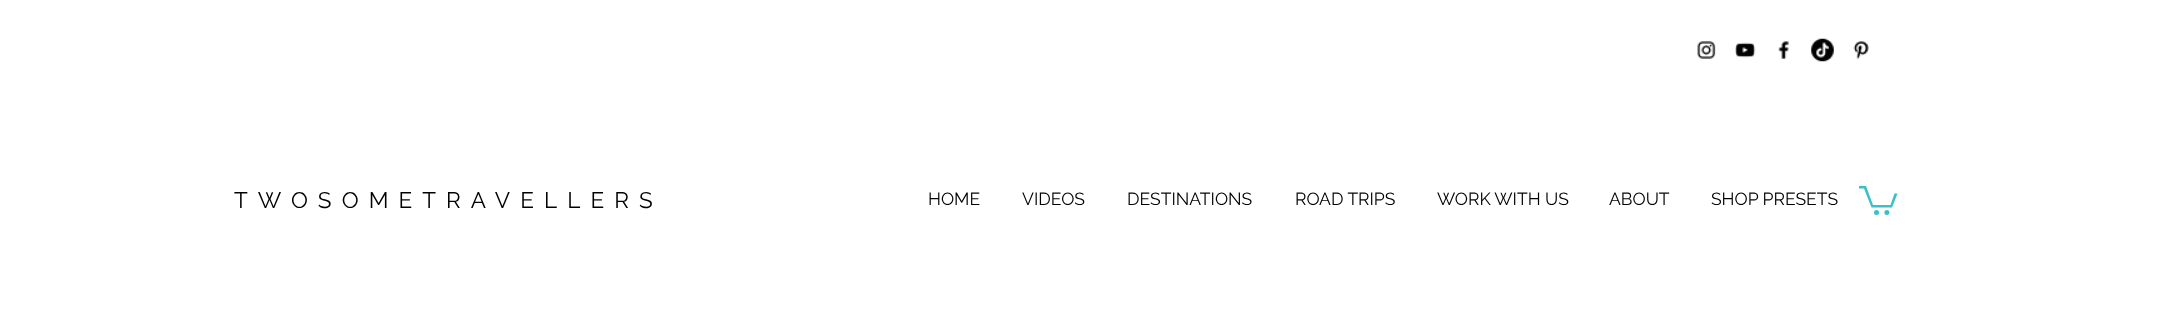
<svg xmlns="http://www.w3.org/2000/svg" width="2165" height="320">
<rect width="100%" height="100%" fill="#fff"/>
<image x="1697" y="41" width="19" height="18" href="media/1.png"/>
<image x="1735" y="42" width="21" height="16" href="media/2.png"/>
<image x="1778" y="41" width="11" height="18" href="media/3.png"/>
<image x="1811" y="38" width="23" height="24" href="media/4.png"/>
<image x="1853" y="41" width="16" height="18" href="media/5.png"/>
<text x="234" y="208" style="font-family:Raleway;font-size:22.5px;letter-spacing:10.1px;fill:#000">TWOSOMETRAVELLERS</text>
<text x="928" y="205" style="font-family:Raleway;font-size:17.5px;fill:#000">HOME</text>
<text x="1022" y="205" style="font-family:Raleway;font-size:17.5px;fill:#000">VIDEOS</text>
<text x="1127" y="205" style="font-family:Raleway;font-size:17.5px;fill:#000">DESTINATIONS</text>
<text x="1295" y="205" style="font-family:Raleway;font-size:17.5px;fill:#000">ROAD TRIPS</text>
<text x="1437" y="205" style="font-family:Raleway;font-size:17.5px;fill:#000">WORK WITH US</text>
<text x="1609" y="205" style="font-family:Raleway;font-size:17.5px;fill:#000">ABOUT</text>
<text x="1711" y="205" style="font-family:Raleway;font-size:17.5px;fill:#000">SHOP PRESETS</text>
<path d="M1897.5 193.5l-5.5 14h-20.5l-7.5-19h-5v-2.5h7l7 19h17.5l4-11.5" fill="#3ac0c7"/>
<circle cx="1886.9" cy="212.5" r="2.5" fill="#3ac0c7"/>
<circle cx="1876.5" cy="212.5" r="2.5" fill="#3ac0c7"/>
</svg>
